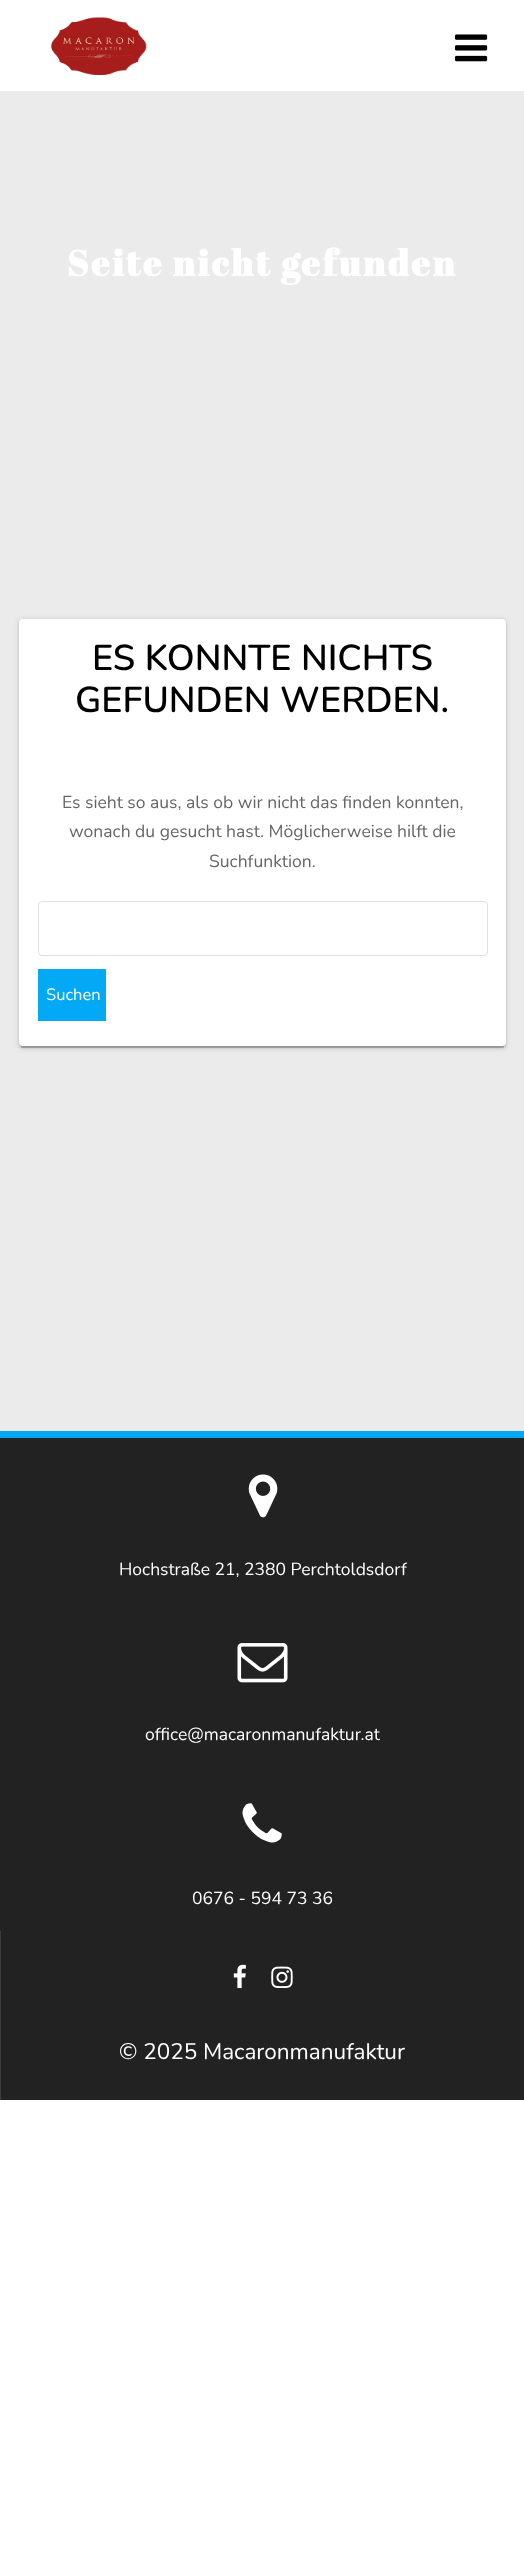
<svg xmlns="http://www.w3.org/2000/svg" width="524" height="2557">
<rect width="100%" height="100%" fill="#fff"/>
<image x="51" y="17" width="96" height="58" href="media/1.png"/>
<image x="455" y="34" width="33" height="28" href="media/2.png"/>
<rect y="91" width="524" height="1340" fill="#ebebeb"/>
<text x="67" y="276" style="font-family:Abril Fatface;font-size:36px;font-weight:bold;letter-spacing:2.5px;fill:#fff">Seite nicht gefunden</text>
<rect x="19" y="620" width="487" height="428" rx="4" fill="#0000001f" filter="blur(3px)"/>
<rect x="21" y="625" width="483" height="423" rx="1" fill="#00000033" filter="blur(0.5px)"/>
<rect x="19" y="620" width="487" height="428" rx="4" fill="#00000024" filter="blur(1px)"/>
<rect x="19" y="619" width="487" height="427" rx="4" fill="#fff"/>
<text x="92" y="670" style="font-family:Nunito;font-size:36px;font-weight:600;fill:#000">ES KONNTE NICHTS</text>
<text x="75" y="712" style="font-family:Nunito;font-size:36px;font-weight:600;fill:#000">GEFUNDEN WERDEN.</text>
<text x="62" y="808" style="font-family:Nunito;font-size:17.5px;fill:#666">Es sieht so aus, als ob wir nicht das finden konnten,</text>
<text x="69" y="837" style="font-family:Nunito;font-size:17.5px;fill:#666">wonach du gesucht hast. Möglicherweise hilft die</text>
<text x="209" y="867" style="font-family:Nunito;font-size:17.5px;fill:#666">Suchfunktion.</text>
<rect x="38.5" y="901.5" width="449" height="54" rx="3.5" fill="none" stroke="#e0e0e0"/>
<rect x="38" y="969" width="68" height="52" fill="#03a9f4"/>
<text x="46" y="1000" style="font-family:Nunito;font-size:16.5px;fill:#fff">Suchen</text>
<rect y="1438" width="524" height="662" fill="#222"/>
<rect y="1431" width="524" height="7" fill="#03a8f4"/>
<image x="248" y="1474" width="30" height="44" href="media/3.png"/>
<text x="119" y="1575" style="font-family:Nunito;font-size:17.5px;fill:#fff">Hochstraße 21, 2380 Perchtoldsdorf</text>
<image x="237" y="1643" width="51" height="40" href="media/4.png"/>
<text x="145" y="1740" style="font-family:Nunito;font-size:17.5px;fill:#fff">office@macaronmanufaktur.at</text>
<image x="242" y="1803" width="40" height="40" href="media/5.png"/>
<text x="192" y="1904" style="font-family:Nunito;font-size:17.5px;fill:#fff">0676 - 594 73 36</text>
<rect y="1931" width="1" height="169" fill="#3d3d3d"/>
<image x="233" y="1964" width="13" height="25" href="media/6.png"/>
<image x="271" y="1966" width="22" height="22" href="media/7.png"/>
<text x="119" y="2059" style="font-family:Nunito;font-size:22.5px;fill:#fff">© 2025 Macaronmanufaktur</text>
</svg>
